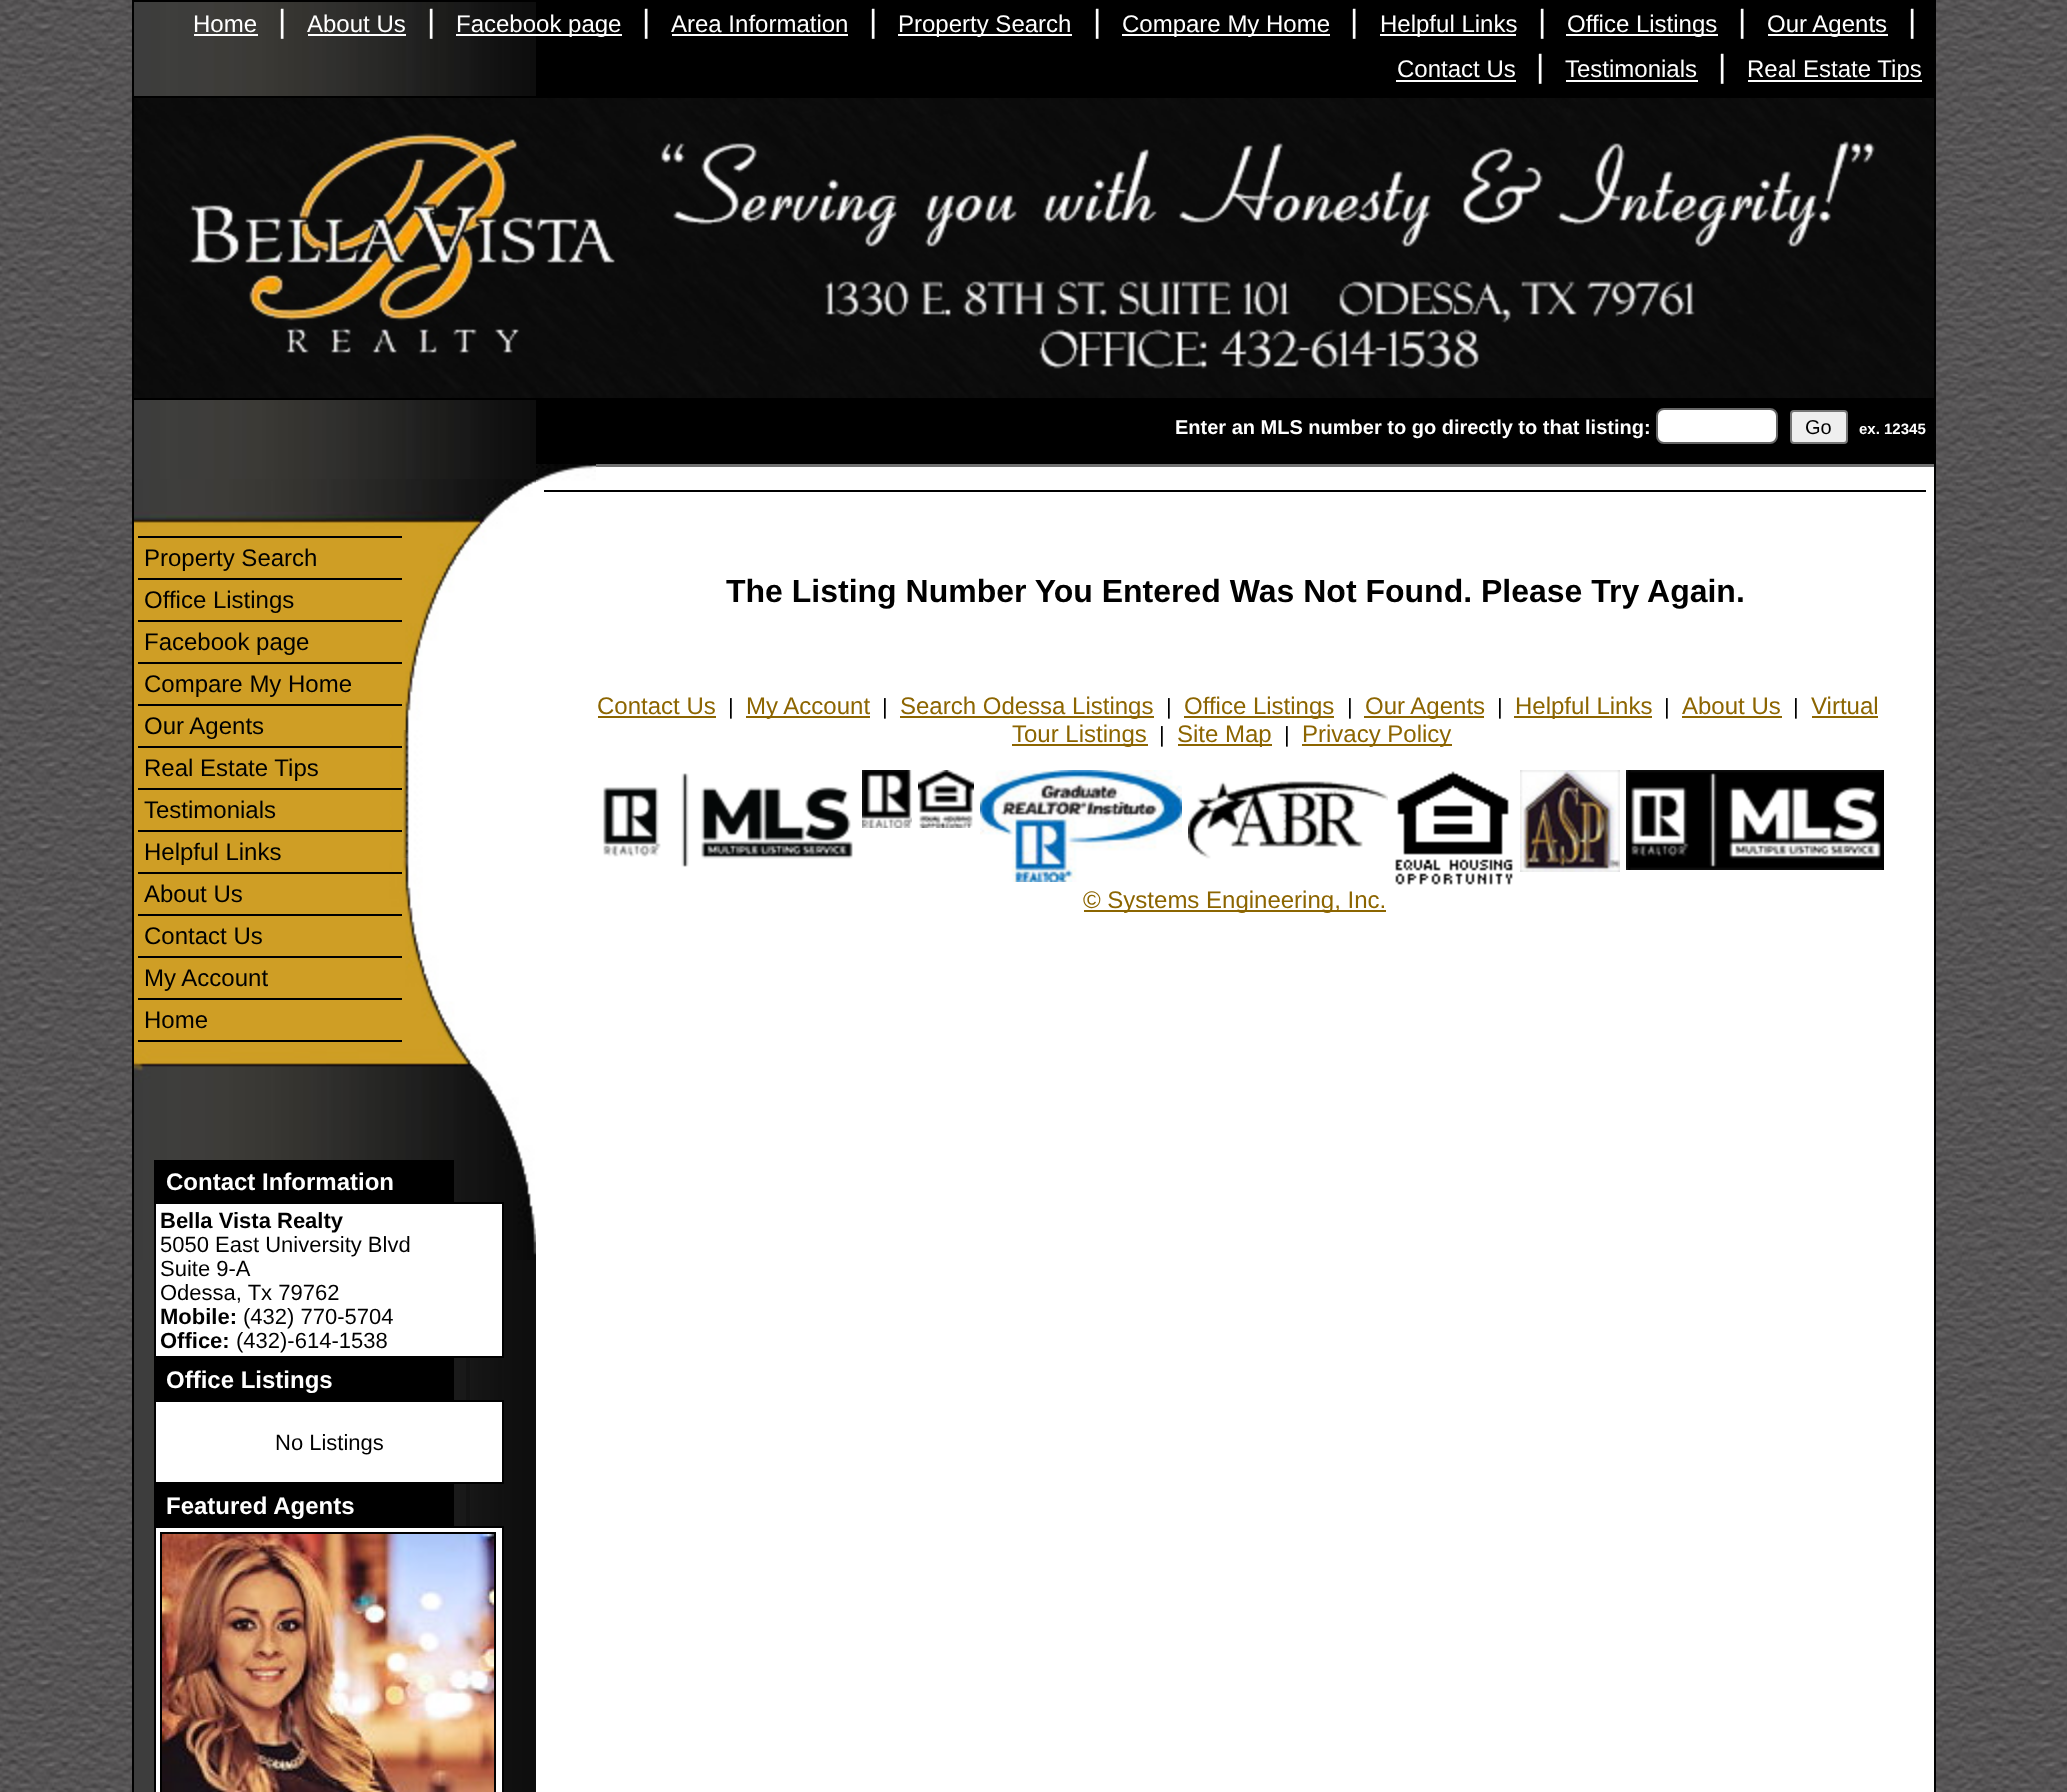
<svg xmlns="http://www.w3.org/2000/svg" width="2067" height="1792">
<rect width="100%" height="100%" fill="#fff"/>
<image x="0" y="0" width="2067" height="1792" href="media/1.png"/>
<rect x="133" y="1" width="1802" height="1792" fill="none" stroke="#000" stroke-width="2"/>
<rect x="536" y="2" width="1398" height="94" fill="#000"/>
<image x="134" y="2" width="402" height="94" href="media/2.png"/>
<rect x="134" y="96" width="1800" height="2" fill="#000"/>
<text x="193" y="32" style="font-family:Liberation Sans;font-size:24px;fill:#fff">Home</text>
<rect x="194" y="34" width="64" height="2" fill="#fff"/>
<text x="278" y="32" style="font-family:Liberation Sans;font-size:32px;fill:#fff">|</text>
<text x="307" y="32" style="font-family:Liberation Sans;font-size:24px;fill:#fff">About Us</text>
<rect x="308" y="34" width="98" height="2" fill="#fff"/>
<text x="427" y="32" style="font-family:Liberation Sans;font-size:32px;fill:#fff">|</text>
<rect x="456" y="34" width="166" height="2" fill="#fff"/>
<text x="456" y="32" style="font-family:Liberation Sans;font-size:24px;fill:#fff">Facebook page</text>
<text x="642" y="32" style="font-family:Liberation Sans;font-size:32px;fill:#fff">|</text>
<text x="671" y="32" style="font-family:Liberation Sans;font-size:24px;fill:#fff">Area Information</text>
<rect x="672" y="34" width="176" height="2" fill="#fff"/>
<text x="869" y="32" style="font-family:Liberation Sans;font-size:32px;fill:#fff">|</text>
<rect x="898" y="34" width="174" height="2" fill="#fff"/>
<text x="898" y="32" style="font-family:Liberation Sans;font-size:24px;fill:#fff">Property Search</text>
<text x="1093" y="32" style="font-family:Liberation Sans;font-size:32px;fill:#fff">|</text>
<rect x="1122" y="34" width="208" height="2" fill="#fff"/>
<text x="1122" y="32" style="font-family:Liberation Sans;font-size:24px;fill:#fff">Compare My Home</text>
<text x="1350" y="32" style="font-family:Liberation Sans;font-size:32px;fill:#fff">|</text>
<rect x="1380" y="34" width="136" height="2" fill="#fff"/>
<text x="1380" y="32" style="font-family:Liberation Sans;font-size:24px;fill:#fff">Helpful Links</text>
<text x="1538" y="32" style="font-family:Liberation Sans;font-size:32px;fill:#fff">|</text>
<rect x="1566" y="34" width="152" height="2" fill="#fff"/>
<text x="1567" y="32" style="font-family:Liberation Sans;font-size:24px;fill:#fff">Office Listings</text>
<text x="1738" y="32" style="font-family:Liberation Sans;font-size:32px;fill:#fff">|</text>
<rect x="1768" y="34" width="120" height="2" fill="#fff"/>
<text x="1767" y="32" style="font-family:Liberation Sans;font-size:24px;fill:#fff">Our Agents</text>
<text x="1908" y="32" style="font-family:Liberation Sans;font-size:32px;fill:#fff">|</text>
<text x="1397" y="77" style="font-family:Liberation Sans;font-size:24px;fill:#fff">Contact Us</text>
<rect x="1396" y="80" width="120" height="2" fill="#fff"/>
<text x="1536" y="77" style="font-family:Liberation Sans;font-size:32px;fill:#fff">|</text>
<text x="1565" y="77" style="font-family:Liberation Sans;font-size:24px;fill:#fff">Testimonials</text>
<rect x="1566" y="80" width="132" height="2" fill="#fff"/>
<text x="1718" y="77" style="font-family:Liberation Sans;font-size:32px;fill:#fff">|</text>
<rect x="1748" y="80" width="174" height="2" fill="#fff"/>
<text x="1747" y="77" style="font-family:Liberation Sans;font-size:24px;fill:#fff">Real Estate Tips</text>
<rect x="134" y="398" width="1800" height="2" fill="#000"/>
<image x="134" y="98" width="1800" height="300" href="media/3.png"/>
<rect x="536" y="400" width="1398" height="64" fill="#000"/>
<image x="134" y="400" width="402" height="64" href="media/4.png"/>
<text x="1175" y="434" style="font-family:Liberation Sans;font-size:20px;font-weight:bold;fill:#fff">Enter an MLS number to go directly to that listing:</text>
<rect x="1657" y="409" width="120" height="34" rx="7" fill="#fff" stroke="#666" stroke-width="2"/>
<rect x="1791" y="411" width="56" height="32" rx="3" fill="#efefef" stroke="#767676" stroke-width="2"/>
<text x="1805" y="434" style="font-family:Liberation Sans;font-size:20px;fill:#000">Go</text>
<text x="1859" y="434" style="font-family:Liberation Sans;font-size:15px;font-weight:bold;fill:#fff">ex. 12345</text>
<image x="134" y="464" width="402" height="1328" href="media/5.png"/>
<image x="134" y="479" width="402" height="251" href="media/6.png"/>
<rect x="138" y="536" width="264" height="2" fill="#000"/>
<rect x="138" y="578" width="264" height="2" fill="#000"/>
<text x="144" y="566" style="font-family:Liberation Sans;font-size:24px;fill:#000">Property Search</text>
<rect x="138" y="620" width="264" height="2" fill="#000"/>
<text x="144" y="608" style="font-family:Liberation Sans;font-size:24px;fill:#000">Office Listings</text>
<rect x="138" y="662" width="264" height="2" fill="#000"/>
<text x="144" y="650" style="font-family:Liberation Sans;font-size:24px;fill:#000">Facebook page</text>
<rect x="138" y="704" width="264" height="2" fill="#000"/>
<text x="144" y="692" style="font-family:Liberation Sans;font-size:24px;fill:#000">Compare My Home</text>
<image x="134" y="730" width="402" height="128" href="media/7.png"/>
<rect x="393" y="730" width="9" height="16" fill="#ce9e24"/>
<rect x="138" y="746" width="264" height="2" fill="#000"/>
<text x="144" y="734" style="font-family:Liberation Sans;font-size:24px;fill:#000">Our Agents</text>
<rect x="393" y="748" width="9" height="40" fill="#ce9e24"/>
<rect x="138" y="788" width="264" height="2" fill="#000"/>
<text x="144" y="776" style="font-family:Liberation Sans;font-size:24px;fill:#000">Real Estate Tips</text>
<rect x="393" y="790" width="9" height="40" fill="#ce9e24"/>
<rect x="138" y="830" width="264" height="2" fill="#000"/>
<text x="144" y="818" style="font-family:Liberation Sans;font-size:24px;fill:#000">Testimonials</text>
<image x="134" y="858" width="402" height="402" href="media/8.png"/>
<rect x="393" y="832" width="9" height="40" fill="#ce9e24"/>
<rect x="138" y="872" width="264" height="2" fill="#000"/>
<text x="144" y="860" style="font-family:Liberation Sans;font-size:24px;fill:#000">Helpful Links</text>
<rect x="138" y="914" width="264" height="2" fill="#000"/>
<text x="144" y="902" style="font-family:Liberation Sans;font-size:24px;fill:#000">About Us</text>
<rect x="138" y="956" width="264" height="2" fill="#000"/>
<text x="144" y="944" style="font-family:Liberation Sans;font-size:24px;fill:#000">Contact Us</text>
<rect x="138" y="998" width="264" height="2" fill="#000"/>
<text x="144" y="986" style="font-family:Liberation Sans;font-size:24px;fill:#000">My Account</text>
<rect x="138" y="1040" width="264" height="2" fill="#000"/>
<text x="144" y="1028" style="font-family:Liberation Sans;font-size:24px;fill:#000">Home</text>
<rect x="466" y="1358" width="4" height="168" fill="#141414"/>
<rect x="154" y="1160" width="300" height="42" fill="#000"/>
<text x="166" y="1190" style="font-family:Liberation Sans;font-size:24px;font-weight:bold;fill:#fff">Contact Information</text>
<rect x="155" y="1203" width="348" height="154" fill="#fff" stroke="#000" stroke-width="2"/>
<text x="160" y="1228" style="font-family:Liberation Sans;font-size:22px;font-weight:bold;fill:#000">Bella Vista Realty</text>
<text x="160" y="1252" style="font-family:Liberation Sans;font-size:22px;fill:#000">5050 East University Blvd</text>
<text x="160" y="1276" style="font-family:Liberation Sans;font-size:22px;fill:#000">Suite 9-A</text>
<text x="160" y="1300" style="font-family:Liberation Sans;font-size:22px;fill:#000">Odessa, Tx 79762</text>
<text x="160" y="1324" style="font-family:Liberation Sans;font-size:22px;font-weight:bold;fill:#000">Mobile:</text>
<text x="243" y="1324" style="font-family:Liberation Sans;font-size:22px;fill:#000">(432) 770-5704</text>
<text x="160" y="1348" style="font-family:Liberation Sans;font-size:22px;font-weight:bold;fill:#000">Office:</text>
<text x="236" y="1348" style="font-family:Liberation Sans;font-size:22px;fill:#000">(432)-614-1538</text>
<rect x="154" y="1358" width="300" height="42" fill="#000"/>
<text x="166" y="1388" style="font-family:Liberation Sans;font-size:24px;font-weight:bold;fill:#fff">Office Listings</text>
<rect x="155" y="1401" width="348" height="82" fill="#fff" stroke="#000" stroke-width="2"/>
<text x="275" y="1450" style="font-family:Liberation Sans;font-size:22px;fill:#000">No Listings</text>
<rect x="154" y="1484" width="300" height="42" fill="#000"/>
<text x="166" y="1514" style="font-family:Liberation Sans;font-size:24px;font-weight:bold;fill:#fff">Featured Agents</text>
<rect x="155" y="1527" width="348" height="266" fill="#fff" stroke="#000" stroke-width="2"/>
<rect x="161" y="1533" width="334" height="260" fill="none" stroke="#000" stroke-width="2"/>
<image x="162" y="1534" width="332" height="258" href="media/9.png"/>
<rect x="536" y="467" width="1398" height="1325" fill="#fff"/>
<rect x="596" y="464" width="1338" height="3" fill="#717171"/>
<image x="536" y="464" width="60" height="18" href="media/10.png"/>
<rect x="544" y="490" width="1382" height="2" fill="#000"/>
<text x="726" y="602" style="font-family:Liberation Sans;font-size:32px;font-weight:bold;fill:#000">The Listing Number You Entered Was Not Found. Please Try Again.</text>
<text x="597" y="714" style="font-family:Liberation Sans;font-size:24px;fill:#8c6500">Contact Us</text>
<rect x="598" y="716" width="118" height="2" fill="#8c6500"/>
<text x="728" y="714" style="font-family:Liberation Sans;font-size:22px;fill:#000">|</text>
<rect x="746" y="716" width="124" height="2" fill="#8c6500"/>
<text x="746" y="714" style="font-family:Liberation Sans;font-size:24px;fill:#8c6500">My Account</text>
<text x="882" y="714" style="font-family:Liberation Sans;font-size:22px;fill:#000">|</text>
<rect x="900" y="716" width="254" height="2" fill="#8c6500"/>
<text x="900" y="714" style="font-family:Liberation Sans;font-size:24px;fill:#8c6500">Search Odessa Listings</text>
<text x="1166" y="714" style="font-family:Liberation Sans;font-size:22px;fill:#000">|</text>
<rect x="1184" y="716" width="150" height="2" fill="#8c6500"/>
<text x="1184" y="714" style="font-family:Liberation Sans;font-size:24px;fill:#8c6500">Office Listings</text>
<text x="1347" y="714" style="font-family:Liberation Sans;font-size:22px;fill:#000">|</text>
<rect x="1364" y="716" width="120" height="2" fill="#8c6500"/>
<text x="1365" y="714" style="font-family:Liberation Sans;font-size:24px;fill:#8c6500">Our Agents</text>
<text x="1497" y="714" style="font-family:Liberation Sans;font-size:22px;fill:#000">|</text>
<rect x="1514" y="716" width="138" height="2" fill="#8c6500"/>
<text x="1515" y="714" style="font-family:Liberation Sans;font-size:24px;fill:#8c6500">Helpful Links</text>
<text x="1664" y="714" style="font-family:Liberation Sans;font-size:22px;fill:#000">|</text>
<text x="1682" y="714" style="font-family:Liberation Sans;font-size:24px;fill:#8c6500">About Us</text>
<rect x="1682" y="716" width="100" height="2" fill="#8c6500"/>
<text x="1793" y="714" style="font-family:Liberation Sans;font-size:22px;fill:#000">|</text>
<text x="1811" y="714" style="font-family:Liberation Sans;font-size:24px;fill:#8c6500">Virtual</text>
<rect x="1812" y="716" width="66" height="2" fill="#8c6500"/>
<rect x="1012" y="744" width="136" height="2" fill="#8c6500"/>
<text x="1012" y="742" style="font-family:Liberation Sans;font-size:24px;fill:#8c6500">Tour Listings</text>
<text x="1159" y="742" style="font-family:Liberation Sans;font-size:22px;fill:#000">|</text>
<rect x="1178" y="744" width="94" height="2" fill="#8c6500"/>
<text x="1177" y="742" style="font-family:Liberation Sans;font-size:24px;fill:#8c6500">Site Map</text>
<text x="1284" y="742" style="font-family:Liberation Sans;font-size:22px;fill:#000">|</text>
<rect x="1302" y="744" width="150" height="2" fill="#8c6500"/>
<text x="1302" y="742" style="font-family:Liberation Sans;font-size:24px;fill:#8c6500">Privacy Policy</text>
<image x="603" y="773" width="250" height="94" href="media/11.png"/>
<image x="862" y="770" width="50" height="58" href="media/12.png"/>
<image x="918" y="770" width="56" height="58" href="media/13.png"/>
<image x="980" y="770" width="202" height="112" href="media/14.png"/>
<image x="1188" y="781" width="200" height="78" href="media/15.png"/>
<image x="1395" y="771" width="118" height="114" href="media/16.png"/>
<image x="1520" y="770" width="100" height="102" href="media/17.png"/>
<image x="1626" y="770" width="258" height="100" href="media/18.png"/>
<rect x="1084" y="910" width="302" height="2" fill="#8c6500"/>
<text x="1083" y="908" style="font-family:Liberation Sans;font-size:24px;fill:#8c6500">© Systems Engineering, Inc.</text>
</svg>
